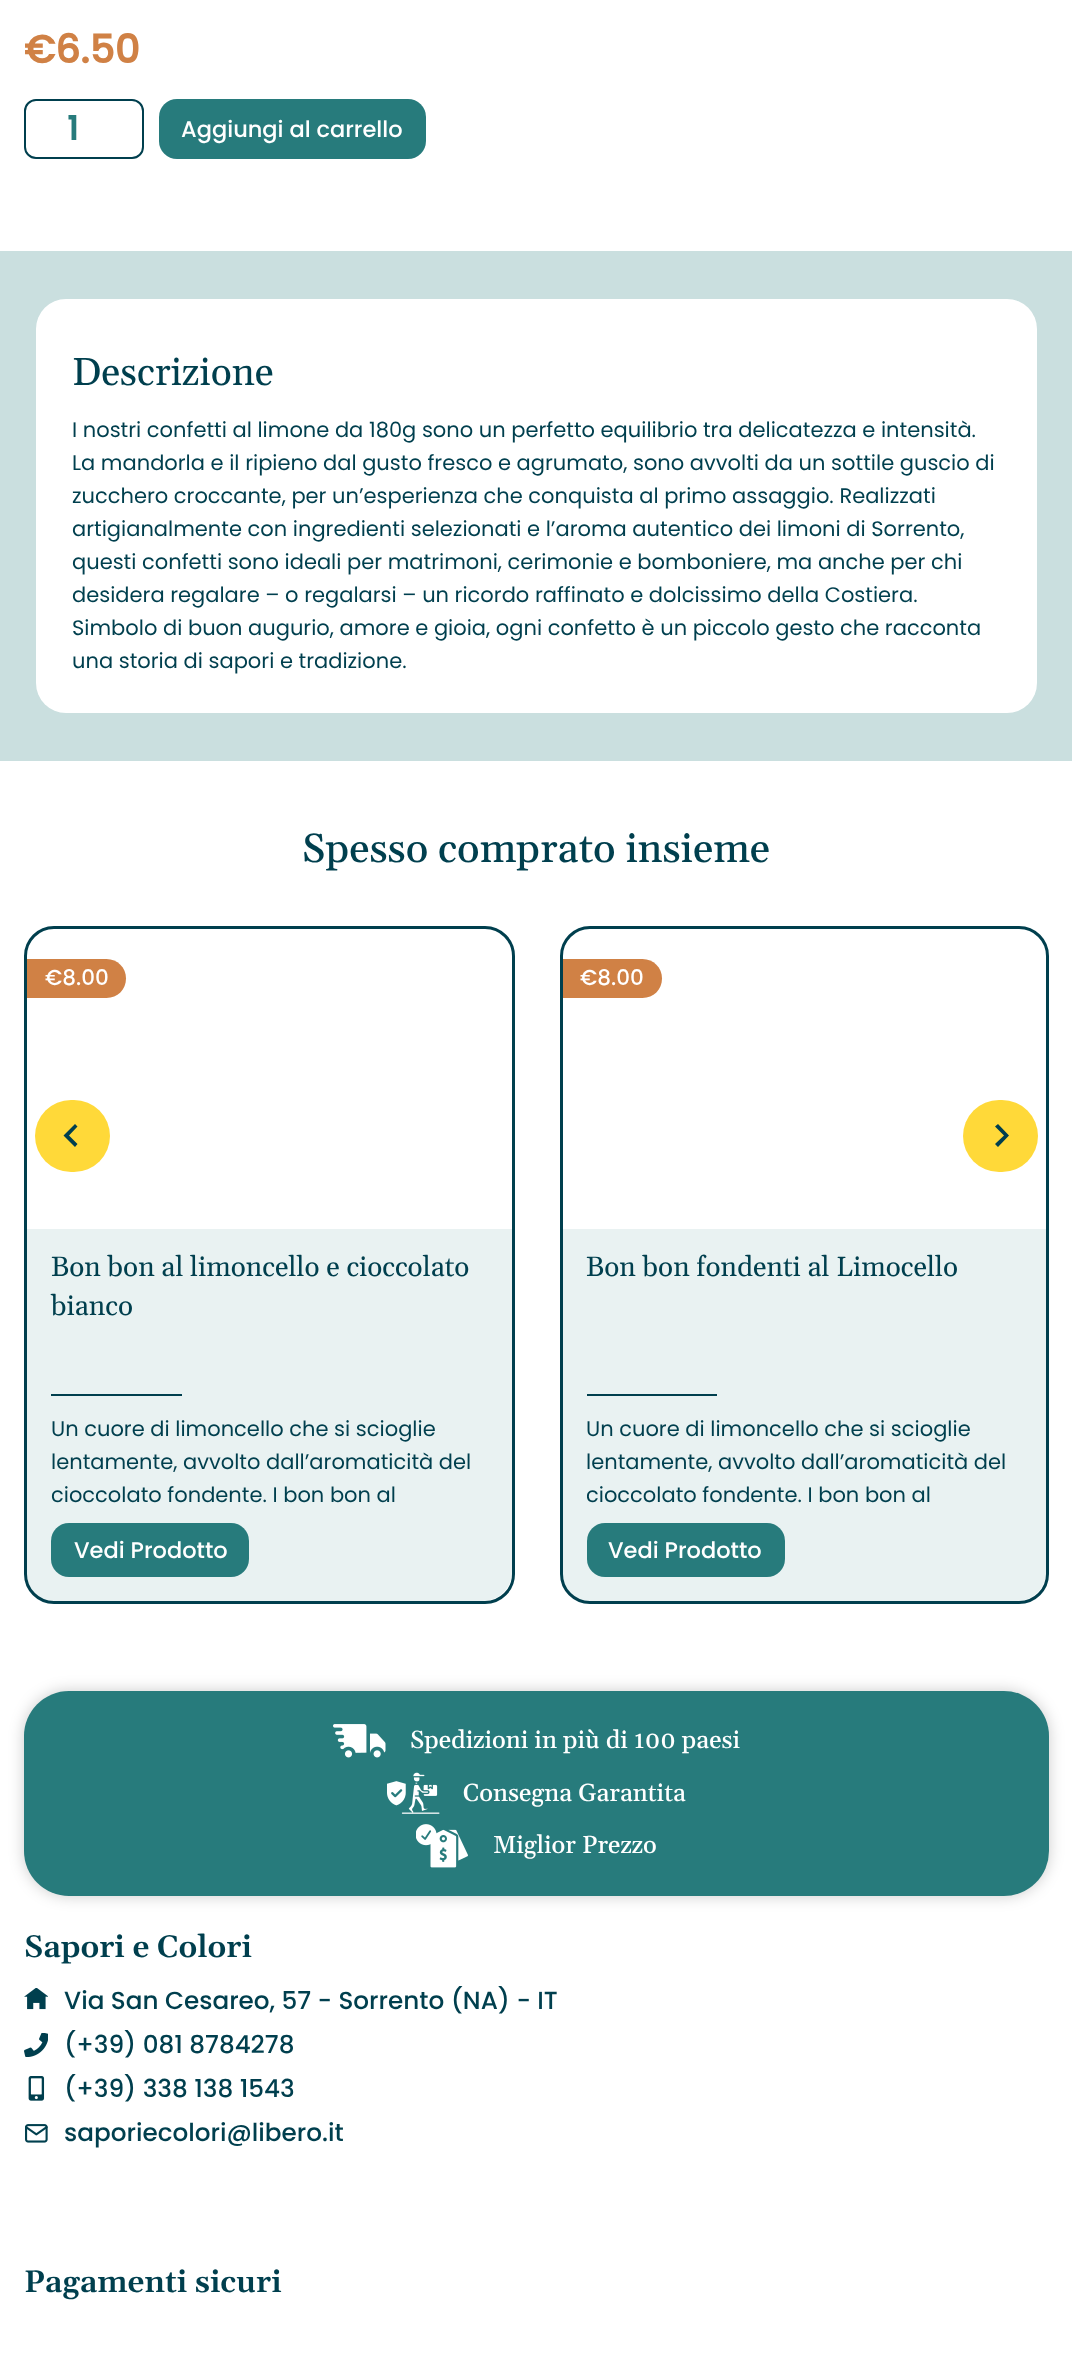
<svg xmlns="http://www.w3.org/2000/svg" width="1072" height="2379">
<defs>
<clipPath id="clip1"><rect x="587" y="1412" width="435" height="99"/></clipPath>
</defs>
<rect width="100%" height="100%" fill="#fff"/>
<text x="24" y="63" style="font-family:Poppins;font-size:39px;font-weight:bold;fill:#d08145">€6.50</text>
<rect x="25" y="100" width="118" height="58" rx="11" fill="none" stroke="#003f4e" stroke-width="2"/>
<text x="67" y="140" style="font-family:Poppins;font-size:33px;font-weight:bold;fill:#277b7c">1</text>
<rect x="159" y="99" width="267" height="60" rx="18" fill="#277b7c"/>
<text x="181" y="137" style="font-family:Poppins;font-size:22.5px;font-weight:500;fill:#fff">Aggiungi al carrello</text>
<rect y="251" width="1072" height="510" fill="#cadfdf"/>
<rect x="36" y="299" width="1001" height="414" rx="30" fill="#fff"/>
<text x="72" y="385" style="font-family:Gelasio;font-size:39px;fill:#003f4e">Descrizione</text>
<text x="72" y="437" style="font-family:Poppins;font-size:21px;fill:#003f4e">I nostri confetti al limone da 180g sono un perfetto equilibrio tra delicatezza e intensità.</text>
<text x="72" y="470" style="font-family:Poppins;font-size:21px;fill:#003f4e">La mandorla e il ripieno dal gusto fresco e agrumato, sono avvolti da un sottile guscio di</text>
<text x="72" y="503" style="font-family:Poppins;font-size:21px;fill:#003f4e">zucchero croccante, per un’esperienza che conquista al primo assaggio. Realizzati</text>
<text x="72" y="536" style="font-family:Poppins;font-size:21px;fill:#003f4e">artigianalmente con ingredienti selezionati e l’aroma autentico dei limoni di Sorrento,</text>
<text x="72" y="569" style="font-family:Poppins;font-size:21px;fill:#003f4e">questi confetti sono ideali per matrimoni, cerimonie e bomboniere, ma anche per chi</text>
<text x="72" y="602" style="font-family:Poppins;font-size:21px;fill:#003f4e">desidera regalare – o regalarsi – un ricordo raffinato e dolcissimo della Costiera.</text>
<text x="72" y="635" style="font-family:Poppins;font-size:21px;fill:#003f4e">Simbolo di buon augurio, amore e gioia, ogni confetto è un piccolo gesto che racconta</text>
<text x="72" y="668" style="font-family:Poppins;font-size:21px;fill:#003f4e">una storia di sapori e tradizione.</text>
<text x="302" y="862" style="font-family:Gelasio;font-size:40.5px;font-weight:500;fill:#003f4e">Spesso comprato insieme</text>
<rect x="25.5" y="927.5" width="488" height="675" rx="28.5" fill="none" stroke="#003f4e" stroke-width="3"/>
<path d="M27 959h79.5c11 0 19.5 8.5 19.5 19.5c0 11-8.5 19.5-19.5 19.5h-79.5z" fill="#d08145"/>
<text x="45" y="985" style="font-family:Poppins;font-size:21.5px;font-weight:500;fill:#fff">€8.00</text>
<path d="M27 1229h485v343c0 16-13 29-29 29h-429c-15 0-27-12-27-27z" fill="#277b7c1a"/>
<text x="51" y="1276" style="font-family:Gelasio;font-size:27.9px;fill:#003f4e">Bon bon al limoncello e cioccolato</text>
<text x="51" y="1315" style="font-family:Gelasio;font-size:27.9px;fill:#003f4e">bianco</text>
<rect x="51" y="1394" width="131" height="2" fill="#003f4e"/>
<text x="51" y="1436" style="font-family:Poppins;font-size:21px;fill:#003f4e">Un cuore di limoncello che si scioglie</text>
<text x="51" y="1469" style="font-family:Poppins;font-size:21px;fill:#003f4e">lentamente, avvolto dall’aromaticità del</text>
<text x="51" y="1502" style="font-family:Poppins;font-size:21px;fill:#003f4e">cioccolato fondente. I bon bon al</text>
<rect x="51" y="1523" width="198" height="54" rx="18" fill="#277b7c"/>
<text x="74" y="1558" style="font-family:Poppins;font-size:22.5px;font-weight:500;fill:#fff">Vedi Prodotto</text>
<rect x="561.5" y="927.5" width="486" height="675" rx="28.5" fill="none" stroke="#003f4e" stroke-width="3"/>
<path d="M563 959h79.5c11 0 19.5 8.5 19.5 19.5c0 11-8.5 19.5-19.5 19.5h-79.5z" fill="#d08145"/>
<text x="580" y="985" style="font-family:Poppins;font-size:21.5px;font-weight:500;fill:#fff">€8.00</text>
<path d="M563 1229h483v343c0 16-13 29-29 29h-427c-15 0-27-12-27-27z" fill="#277b7c1a"/>
<text x="586" y="1276" style="font-family:Gelasio;font-size:27.9px;fill:#003f4e">Bon bon fondenti al Limocello</text>
<rect x="587" y="1394" width="130" height="2" fill="#003f4e"/>
<text x="586" y="1436" style="font-family:Poppins;font-size:21px;fill:#003f4e">Un cuore di limoncello che si scioglie</text>
<text x="586" y="1469" style="font-family:Poppins;font-size:21px;fill:#003f4e">lentamente, avvolto dall’aromaticità del</text>
<g clip-path="url(#clip1)">
<text x="586" y="1502" style="font-family:Poppins;font-size:21px;fill:#003f4e">cioccolato fondente. I bon bon al</text>
</g>
<rect x="587" y="1523" width="198" height="54" rx="18" fill="#277b7c"/>
<text x="608" y="1558" style="font-family:Poppins;font-size:22.5px;font-weight:500;fill:#fff">Vedi Prodotto</text>
<rect x="35" y="1100" width="75" height="72" rx="36" fill="#ffd939"/>
<path d="M75 1124l2.5 2.5l-8.5 9l8.5 8.5l-2.5 3l-11.5-11.5z" fill="#003f4f"/>
<rect x="963" y="1100" width="75" height="72" rx="36" fill="#ffd939"/>
<path d="M998 1124l-3 2.5l9 9l-9 8.5l3 3l11-11.5z" fill="#003f4f"/>
<rect x="24" y="1691" width="1025" height="205" rx="45" fill="#00000033" filter="blur(7.5px)"/>
<rect x="24" y="1691" width="1025" height="205" rx="45" fill="#277b7c"/>
<image x="333" y="1724" width="53" height="34" href="media/1.png"/>
<text x="410" y="1748" style="font-family:Gelasio;font-size:24.7px;font-weight:500;fill:#fff">Spedizioni in più di 100 paesi</text>
<image x="387" y="1772" width="53" height="42" href="media/2.png"/>
<text x="463" y="1801" style="font-family:Gelasio;font-size:24.7px;font-weight:500;fill:#fff">Consegna Garantita</text>
<image x="416" y="1824" width="52" height="44" href="media/3.png"/>
<text x="493" y="1853" style="font-family:Gelasio;font-size:24.7px;font-weight:500;fill:#fff">Miglior Prezzo</text>
<text x="24" y="1957" style="font-family:Gelasio;font-size:31px;font-weight:600;fill:#003f4e">Sapori e Colori</text>
<image x="24" y="1988" width="24" height="22" href="media/4.png"/>
<text x="64" y="2009" style="font-family:Poppins;font-size:24.7px;font-weight:500;fill:#003f4e">Via San Cesareo, 57 - Sorrento (NA) - IT</text>
<image x="24" y="2033" width="24" height="24" href="media/5.png"/>
<text x="64" y="2053" style="font-family:Poppins;font-size:24.7px;font-weight:500;fill:#003f4e">(+39) 081 8784278</text>
<image x="28" y="2076" width="17" height="25" href="media/6.png"/>
<text x="64" y="2097" style="font-family:Poppins;font-size:24.7px;font-weight:500;fill:#003f4e">(+39) 338 138 1543</text>
<image x="25" y="2124" width="23" height="19" href="media/7.png"/>
<text x="64" y="2141" style="font-family:Poppins;font-size:24.7px;font-weight:500;fill:#003f4e">saporiecolori@libero.it</text>
<text x="24" y="2292" style="font-family:Gelasio;font-size:31px;font-weight:600;fill:#003f4e">Pagamenti sicuri</text>
</svg>
